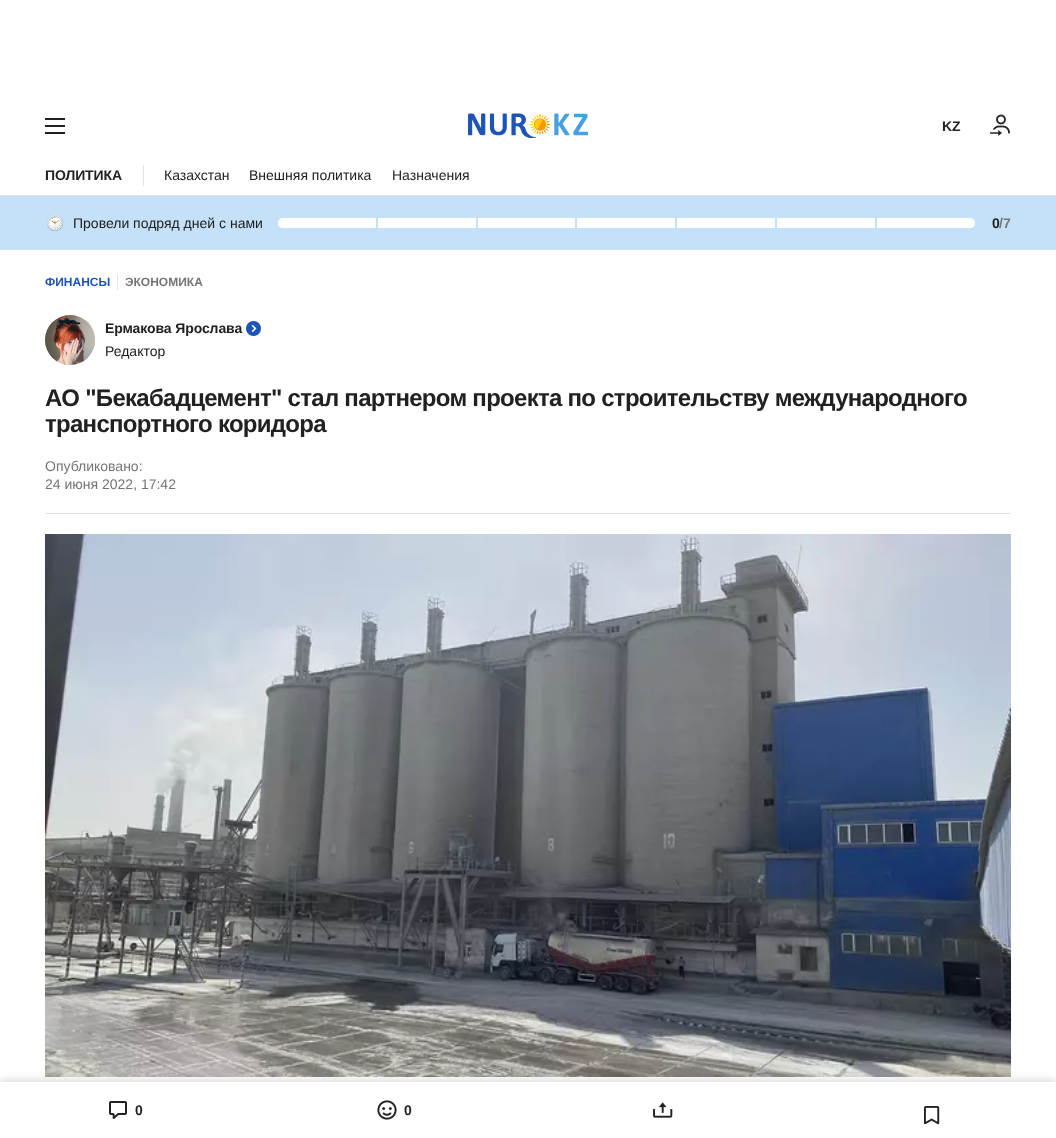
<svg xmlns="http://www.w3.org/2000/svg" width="1056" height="1138">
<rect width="100%" height="100%" fill="#fff"/>
<image x="45" y="118" width="20" height="16" href="media/1.png"/>
<image x="468" y="113" width="120" height="25" href="media/2.png"/>
<text x="942" y="131" style="font-family:Liberation Sans;font-size:14px;font-weight:bold;letter-spacing:-0.1px;fill:#212121">KZ</text>
<image x="990" y="114" width="20" height="22" href="media/3.png"/>
<rect y="195" width="1056" height="1" fill="#e2e2e2"/>
<text x="45" y="180" style="font-family:Liberation Sans;font-size:14px;font-weight:bold;letter-spacing:-0.1px;fill:#212121">ПОЛИТИКА</text>
<rect x="143" y="165" width="1" height="21" fill="#e2e2e2"/>
<text x="164" y="180" style="font-family:Liberation Sans;font-size:14px;fill:#212121">Казахстан</text>
<text x="249" y="180" style="font-family:Liberation Sans;font-size:14px;fill:#212121">Внешняя политика</text>
<text x="392" y="180" style="font-family:Liberation Sans;font-size:14px;fill:#212121">Назначения</text>
<rect y="196" width="1056" height="54" fill="#c4e1f8"/>
<image x="47" y="215" width="16" height="16" href="media/4.png"/>
<text x="73" y="228" style="font-family:Liberation Sans;font-size:14px;fill:#212121">Провели подряд дней с нами</text>
<path d="M283 218h93v10h-93c-3 0-5-2-5-5c0-3 2-5 5-5z" fill="#fff"/>
<rect x="378" y="218" width="98" height="10" fill="#fff"/>
<rect x="478" y="218" width="97" height="10" fill="#fff"/>
<rect x="577" y="218" width="98" height="10" fill="#fff"/>
<rect x="677" y="218" width="98" height="10" fill="#fff"/>
<rect x="777" y="218" width="98" height="10" fill="#fff"/>
<path d="M877 218h93c3 0 5 2 5 5c0 3-2 5-5 5h-93z" fill="#fff"/>
<text x="992" y="228" style="font-family:Liberation Sans;font-size:14px;font-weight:bold;fill:#212121">0</text>
<text x="999" y="228" style="font-family:Liberation Sans;font-size:14px;font-weight:bold;fill:#757575">/7</text>
<text x="45" y="286" style="font-family:Liberation Sans;font-size:12px;font-weight:bold;fill:#1e54b7">ФИНАНСЫ</text>
<rect x="117" y="275" width="1" height="15" fill="#e2e2e2"/>
<text x="125" y="286" style="font-family:Liberation Sans;font-size:12px;font-weight:bold;fill:#757575">ЭКОНОМИКА</text>
<circle cx="70" cy="340" r="25" fill="#afafaf"/>
<image x="45" y="315" width="50" height="50" href="media/5.png"/>
<text x="105" y="333" style="font-family:Liberation Sans;font-size:14px;font-weight:bold;letter-spacing:-0.1px;fill:#212121">Ермакова Ярослава</text>
<image x="246" y="321" width="15" height="15" href="media/6.png"/>
<text x="105" y="356" style="font-family:Liberation Sans;font-size:14px;fill:#212121">Редактор</text>
<text x="45" y="406" style="font-family:Liberation Sans;font-size:24px;font-weight:bold;letter-spacing:-0.72px;fill:#212121">АО "Бекабадцемент" стал партнером проекта по строительству международного</text>
<text x="45" y="432" style="font-family:Liberation Sans;font-size:24px;font-weight:bold;letter-spacing:-0.72px;fill:#212121">транспортного коридора</text>
<rect x="45" y="513" width="966" height="1" fill="#e2e2e2"/>
<text x="45" y="471" style="font-family:Liberation Sans;font-size:14px;fill:#757575">Опубликовано:</text>
<text x="45" y="489" style="font-family:Liberation Sans;font-size:14px;fill:#757575">24 июня 2022, 17:42</text>
<image x="45" y="534" width="966" height="543" href="media/7.png"/>
<rect y="1080" width="1056" height="56" fill="#00000026" filter="blur(4px)"/>
<rect y="1082" width="1056" height="56" fill="#fff"/>
<image x="109" y="1101" width="18" height="18" href="media/8.png"/>
<text x="135" y="1115" style="font-family:Liberation Sans;font-size:14px;font-weight:bold;letter-spacing:-0.1px;fill:#212121">0</text>
<image x="377" y="1100" width="20" height="20" href="media/9.png"/>
<text x="404" y="1115" style="font-family:Liberation Sans;font-size:14px;font-weight:bold;letter-spacing:-0.1px;fill:#212121">0</text>
<image x="653" y="1102" width="20" height="16" href="media/10.png"/>
<image x="924" y="1106" width="16" height="19" href="media/11.png"/>
</svg>
